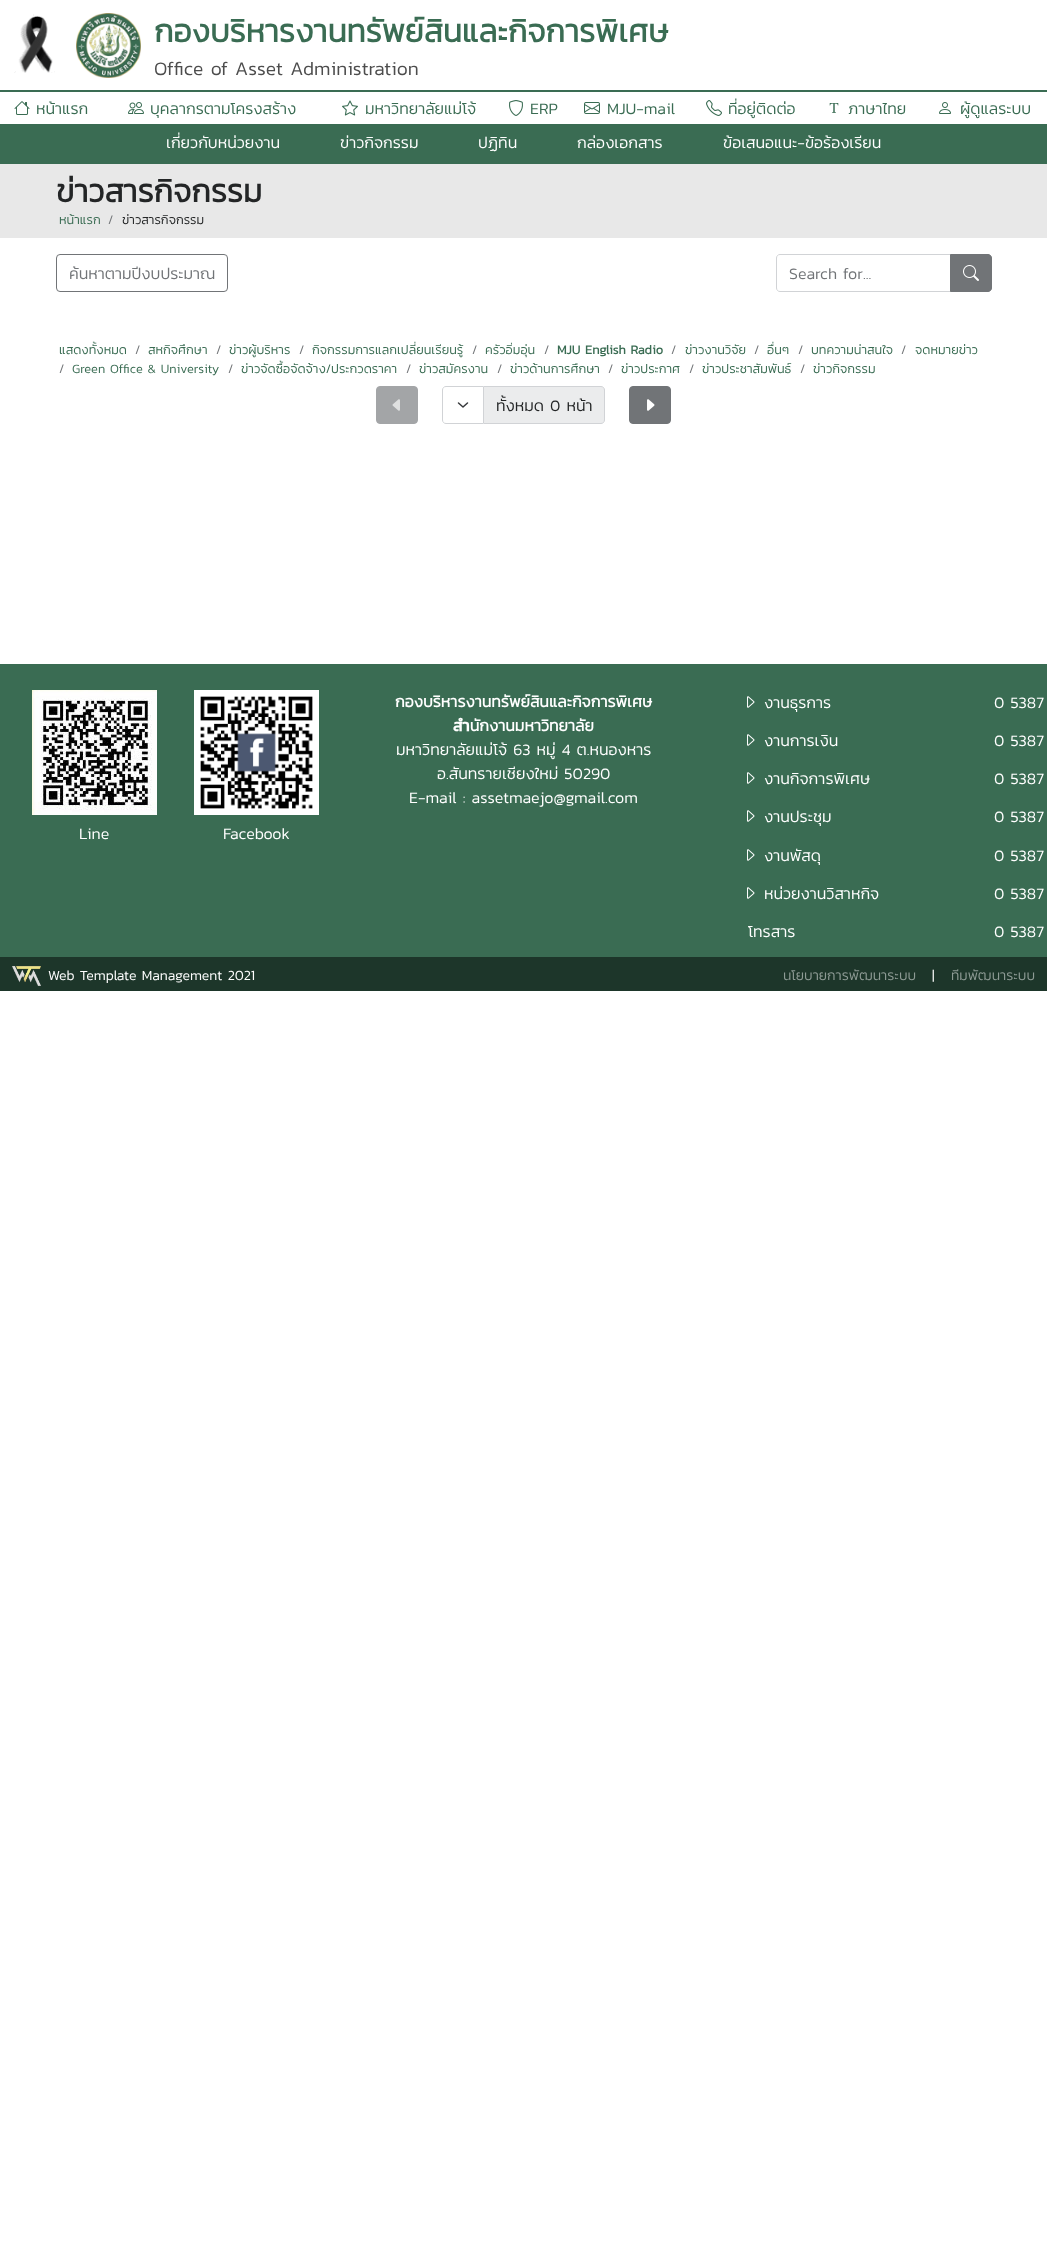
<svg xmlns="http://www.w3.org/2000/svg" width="1047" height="2242">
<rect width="100%" height="100%" fill="#fff"/>
<image x="14" y="14" width="41" height="59" href="media/1.png"/>
<image x="76" y="13" width="65" height="65" href="media/2.png"/>
<text x="154" y="42" style="font-family:Kanit;font-size:32px;font-weight:bold;fill:#3a6c53">กองบริหารงานทรัพย์สินและกิจการพิเศษ</text>
<text x="154" y="75" style="font-family:Kanit;font-size:19.25px;font-weight:300;fill:#4d4d4d">Office of Asset Administration</text>
<image x="14" y="101" width="16" height="14" href="media/3.png"/>
<text x="36" y="114" style="font-family:Kanit;font-size:16px;font-weight:300;fill:#3a6c53">หน้าแรก</text>
<image x="128" y="102" width="16" height="12" href="media/4.png"/>
<text x="150" y="114" style="font-family:Kanit;font-size:16px;font-weight:300;fill:#3a6c53">บุคลากรตามโครงสร้าง</text>
<image x="342" y="100" width="16" height="16" href="media/5.png"/>
<text x="365" y="114" style="font-family:Kanit;font-size:16px;font-weight:300;fill:#3a6c53">มหาวิทยาลัยแม่โจ้</text>
<image x="509" y="100" width="14" height="16" href="media/6.png"/>
<text x="530" y="114" style="font-family:Kanit;font-size:16px;font-weight:300;fill:#3a6c53">ERP</text>
<image x="584" y="102" width="16" height="12" href="media/7.png"/>
<text x="607" y="114" style="font-family:Kanit;font-size:16px;font-weight:300;fill:#3a6c53">MJU-mail</text>
<image x="706" y="100" width="16" height="16" href="media/8.png"/>
<text x="728" y="114" style="font-family:Kanit;font-size:16px;font-weight:300;fill:#3a6c53">ที่อยู่ติดต่อ</text>
<image x="829" y="103" width="10" height="10" href="media/9.png"/>
<text x="848" y="114" style="font-family:Kanit;font-size:16px;font-weight:300;fill:#3a6c53">ภาษาไทย</text>
<rect y="90" width="1047" height="2" fill="#3a6c53"/>
<image x="939" y="102" width="12" height="12" href="media/10.png"/>
<text x="960" y="114" style="font-family:Kanit;font-size:16px;font-weight:300;fill:#3a6c53">ผู้ดูแลระบบ</text>
<rect y="124" width="1047" height="40" fill="#3a6c53"/>
<text x="166" y="148" style="font-family:Kanit;font-size:16px;font-weight:300;fill:#fff">เกี่ยวกับหน่วยงาน</text>
<text x="340" y="148" style="font-family:Kanit;font-size:16px;font-weight:300;fill:#fff">ข่าวกิจกรรม</text>
<text x="478" y="148" style="font-family:Kanit;font-size:16px;font-weight:300;fill:#fff">ปฏิทิน</text>
<text x="577" y="148" style="font-family:Kanit;font-size:16px;font-weight:300;fill:#fff">กล่องเอกสาร</text>
<text x="723" y="148" style="font-family:Kanit;font-size:16px;font-weight:300;fill:#fff">ข้อเสนอแนะ-ข้อร้องเรียน</text>
<rect y="164" width="1047" height="74" fill="#e8e8e8"/>
<text x="56" y="202" style="font-family:Kanit;font-size:32px;font-weight:bold;fill:#232526">ข่าวสารกิจกรรม</text>
<text x="59" y="224" style="font-family:Kanit;font-size:12.75px;font-weight:300;fill:#3a6c53">หน้าแรก</text>
<text x="108" y="224" style="font-family:Kanit;font-size:12.75px;font-weight:300;fill:#717477">/</text>
<text x="122" y="224" style="font-family:Kanit;font-size:12.75px;font-weight:300;fill:#232526">ข่าวสารกิจกรรม</text>
<rect x="56.5" y="254.5" width="171" height="37" rx="3.5" fill="none" stroke="#717477"/>
<text x="69" y="279" style="font-family:Kanit;font-size:16px;font-weight:300;fill:#717477">ค้นหาตามปีงบประมาณ</text>
<path d="M780 254.5h170.5v37h-170.5c-2 0-3.5-1.5-3.5-3.5v-30c0-2 1.5-3.5 3.5-3.5z" fill="none" stroke="#d1d3d6"/>
<text x="789" y="279" style="font-family:Kanit;font-size:16px;font-weight:300;fill:#717477">Search for...</text>
<path d="M950.5 254.5h37.5c2 0 3.5 1.5 3.5 3.5v30c0 2-1.5 3.5-3.5 3.5h-37.5z" fill="#717477" stroke="#717477"/>
<image x="963" y="265" width="16" height="16" href="media/11.png"/>
<text x="59" y="354" style="font-family:Kanit;font-size:12.75px;font-weight:300;fill:#3a6c53">แสดงทั้งหมด</text>
<text x="135" y="354" style="font-family:Kanit;font-size:12.75px;font-weight:300;fill:#717477">/</text>
<text x="148" y="354" style="font-family:Kanit;font-size:12.75px;font-weight:300;fill:#3a6c53">สหกิจศึกษา</text>
<text x="216" y="354" style="font-family:Kanit;font-size:12.75px;font-weight:300;fill:#717477">/</text>
<text x="229" y="354" style="font-family:Kanit;font-size:12.75px;font-weight:300;fill:#3a6c53">ข่าวผู้บริหาร</text>
<text x="299" y="354" style="font-family:Kanit;font-size:12.75px;font-weight:300;fill:#717477">/</text>
<text x="312" y="354" style="font-family:Kanit;font-size:12.75px;font-weight:300;fill:#3a6c53">กิจกรรมการแลกเปลี่ยนเรียนรู้</text>
<text x="472" y="354" style="font-family:Kanit;font-size:12.75px;font-weight:300;fill:#717477">/</text>
<text x="485" y="354" style="font-family:Kanit;font-size:12.75px;font-weight:300;fill:#3a6c53">ครัวอิ่มอุ่น</text>
<text x="544" y="354" style="font-family:Kanit;font-size:12.75px;font-weight:300;fill:#717477">/</text>
<text x="557" y="354" style="font-family:Kanit;font-size:12.75px;font-weight:bold;fill:#3a6c53">MJU English Radio</text>
<text x="671" y="354" style="font-family:Kanit;font-size:12.75px;font-weight:300;fill:#717477">/</text>
<text x="685" y="354" style="font-family:Kanit;font-size:12.75px;font-weight:300;fill:#3a6c53">ข่าวงานวิจัย</text>
<text x="754" y="354" style="font-family:Kanit;font-size:12.75px;font-weight:300;fill:#717477">/</text>
<text x="767" y="354" style="font-family:Kanit;font-size:12.75px;font-weight:300;fill:#3a6c53">อื่นๆ</text>
<text x="798" y="354" style="font-family:Kanit;font-size:12.75px;font-weight:300;fill:#717477">/</text>
<text x="811" y="354" style="font-family:Kanit;font-size:12.75px;font-weight:300;fill:#3a6c53">บทความน่าสนใจ</text>
<text x="901" y="354" style="font-family:Kanit;font-size:12.75px;font-weight:300;fill:#717477">/</text>
<text x="915" y="354" style="font-family:Kanit;font-size:12.75px;font-weight:300;fill:#3a6c53">จดหมายข่าว</text>
<text x="59" y="373" style="font-family:Kanit;font-size:12.75px;font-weight:300;fill:#717477">/</text>
<text x="72" y="373" style="font-family:Kanit;font-size:12.75px;font-weight:300;fill:#3a6c53">Green Office &amp; University</text>
<text x="228" y="373" style="font-family:Kanit;font-size:12.75px;font-weight:300;fill:#717477">/</text>
<text x="241" y="373" style="font-family:Kanit;font-size:12.75px;font-weight:300;fill:#3a6c53">ข่าวจัดซื้อจัดจ้าง/ประกวดราคา</text>
<text x="406" y="373" style="font-family:Kanit;font-size:12.75px;font-weight:300;fill:#717477">/</text>
<text x="419" y="373" style="font-family:Kanit;font-size:12.75px;font-weight:300;fill:#3a6c53">ข่าวสมัครงาน</text>
<text x="497" y="373" style="font-family:Kanit;font-size:12.75px;font-weight:300;fill:#717477">/</text>
<text x="510" y="373" style="font-family:Kanit;font-size:12.75px;font-weight:300;fill:#3a6c53">ข่าวด้านการศึกษา</text>
<text x="608" y="373" style="font-family:Kanit;font-size:12.75px;font-weight:300;fill:#717477">/</text>
<text x="621" y="373" style="font-family:Kanit;font-size:12.75px;font-weight:300;fill:#3a6c53">ข่าวประกาศ</text>
<text x="689" y="373" style="font-family:Kanit;font-size:12.75px;font-weight:300;fill:#717477">/</text>
<text x="702" y="373" style="font-family:Kanit;font-size:12.75px;font-weight:300;fill:#3a6c53">ข่าวประชาสัมพันธ์</text>
<text x="800" y="373" style="font-family:Kanit;font-size:12.75px;font-weight:300;fill:#717477">/</text>
<text x="813" y="373" style="font-family:Kanit;font-size:12.75px;font-weight:300;fill:#3a6c53">ข่าวกิจกรรม</text>
<rect x="376.5" y="386.5" width="41" height="37" rx="3.5" fill="#a3a5a7" stroke="#a3a5a7"/>
<image x="392" y="399" width="8" height="12" href="media/12.png"/>
<path d="M483.5 386.5h117.5c2 0 3.5 1.5 3.5 3.5v30c0 2-1.5 3.5-3.5 3.5h-117.5z" fill="#ebeced" stroke="#d1d3d6"/>
<path d="M446 386h38v38h-38c-2 0-4-2-4-4v-30c0-2 2-4 4-4z" fill="#fff"/>
<path d="M458.5 403l4.5 4l4.5-4" fill="none" stroke="#37393c" stroke-width="1.5" stroke-linecap="round" stroke-linejoin="round"/>
<path d="M446 386.5h37.5v37h-37.5c-2 0-3.5-1.5-3.5-3.5v-30c0-2 1.5-3.5 3.5-3.5z" fill="none" stroke="#d1d3d6"/>
<text x="496" y="411" style="font-family:Kanit;font-size:16px;font-weight:300;fill:#232526">ทั้งหมด 0 หน้า</text>
<rect x="629.5" y="386.5" width="41" height="37" rx="3.5" fill="#717477" stroke="#717477"/>
<image x="647" y="399" width="8" height="12" href="media/13.png"/>
<rect y="664" width="1047" height="293" fill="#3a6c53"/>
<image x="32" y="690" width="125" height="125" href="media/14.png"/>
<text x="79" y="839" style="font-family:Kanit;font-size:16px;font-weight:300;fill:#fff">Line</text>
<image x="194" y="690" width="125" height="125" href="media/15.png"/>
<text x="223" y="839" style="font-family:Kanit;font-size:16px;font-weight:300;fill:#fff">Facebook</text>
<text x="395" y="707" style="font-family:Kanit;font-size:16px;font-weight:bold;fill:#fff">กองบริหารงานทรัพย์สินและกิจการพิเศษ</text>
<text x="453" y="731" style="font-family:Kanit;font-size:16px;font-weight:bold;fill:#fff">สำนักงานมหาวิทยาลัย</text>
<text x="396" y="755" style="font-family:Kanit;font-size:16px;font-weight:300;fill:#fff">มหาวิทยาลัยแม่โจ้ 63 หมู่ 4 ต.หนองหาร</text>
<text x="437" y="779" style="font-family:Kanit;font-size:16px;font-weight:300;fill:#fff">อ.สันทรายเชียงใหม่ 50290</text>
<text x="409" y="803" style="font-family:Kanit;font-size:16px;font-weight:300;fill:#fff">E-mail : assetmaejo@gmail.com</text>
<image x="747" y="696" width="8" height="12" href="media/16.png"/>
<text x="764" y="708" style="font-family:Kanit;font-size:16px;font-weight:300;fill:#fff">งานธุรการ</text>
<text x="994" y="708" style="font-family:Kanit;font-size:16px;font-weight:300;fill:#fff">0 5387</text>
<image x="747" y="734" width="8" height="12" href="media/16.png"/>
<text x="764" y="746" style="font-family:Kanit;font-size:16px;font-weight:300;fill:#fff">งานการเงิน</text>
<text x="994" y="746" style="font-family:Kanit;font-size:16px;font-weight:300;fill:#fff">0 5387</text>
<image x="747" y="772" width="8" height="12" href="media/16.png"/>
<text x="764" y="784" style="font-family:Kanit;font-size:16px;font-weight:300;fill:#fff">งานกิจการพิเศษ</text>
<text x="994" y="784" style="font-family:Kanit;font-size:16px;font-weight:300;fill:#fff">0 5387</text>
<image x="747" y="810" width="8" height="12" href="media/16.png"/>
<text x="764" y="822" style="font-family:Kanit;font-size:16px;font-weight:300;fill:#fff">งานประชุม</text>
<text x="994" y="822" style="font-family:Kanit;font-size:16px;font-weight:300;fill:#fff">0 5387</text>
<image x="747" y="849" width="8" height="12" href="media/16.png"/>
<text x="764" y="861" style="font-family:Kanit;font-size:16px;font-weight:300;fill:#fff">งานพัสดุ</text>
<text x="994" y="861" style="font-family:Kanit;font-size:16px;font-weight:300;fill:#fff">0 5387</text>
<image x="747" y="887" width="8" height="12" href="media/16.png"/>
<text x="764" y="899" style="font-family:Kanit;font-size:16px;font-weight:300;fill:#fff">หน่วยงานวิสาหกิจ</text>
<text x="994" y="899" style="font-family:Kanit;font-size:16px;font-weight:300;fill:#fff">0 5387</text>
<text x="748" y="937" style="font-family:Kanit;font-size:16px;font-weight:300;fill:#fff">โทรสาร</text>
<text x="994" y="937" style="font-family:Kanit;font-size:16px;font-weight:300;fill:#fff">0 5387</text>
<rect y="957" width="1047" height="34" fill="#1d362a"/>
<image x="12" y="966" width="29" height="20" href="media/17.png"/>
<text x="48" y="980" style="font-family:Kanit;font-size:14px;font-weight:300;fill:#fff">Web Template Management 2021</text>
<text x="783" y="980" style="font-family:Kanit;font-size:14px;font-weight:300;fill:#8e9b95">นโยบายการพัฒนาระบบ</text>
<text x="932" y="980" style="font-family:Kanit;font-size:14px;font-weight:300;fill:#fff">|</text>
<text x="951" y="980" style="font-family:Kanit;font-size:14px;font-weight:300;fill:#8e9b95">ทีมพัฒนาระบบ</text>
</svg>
